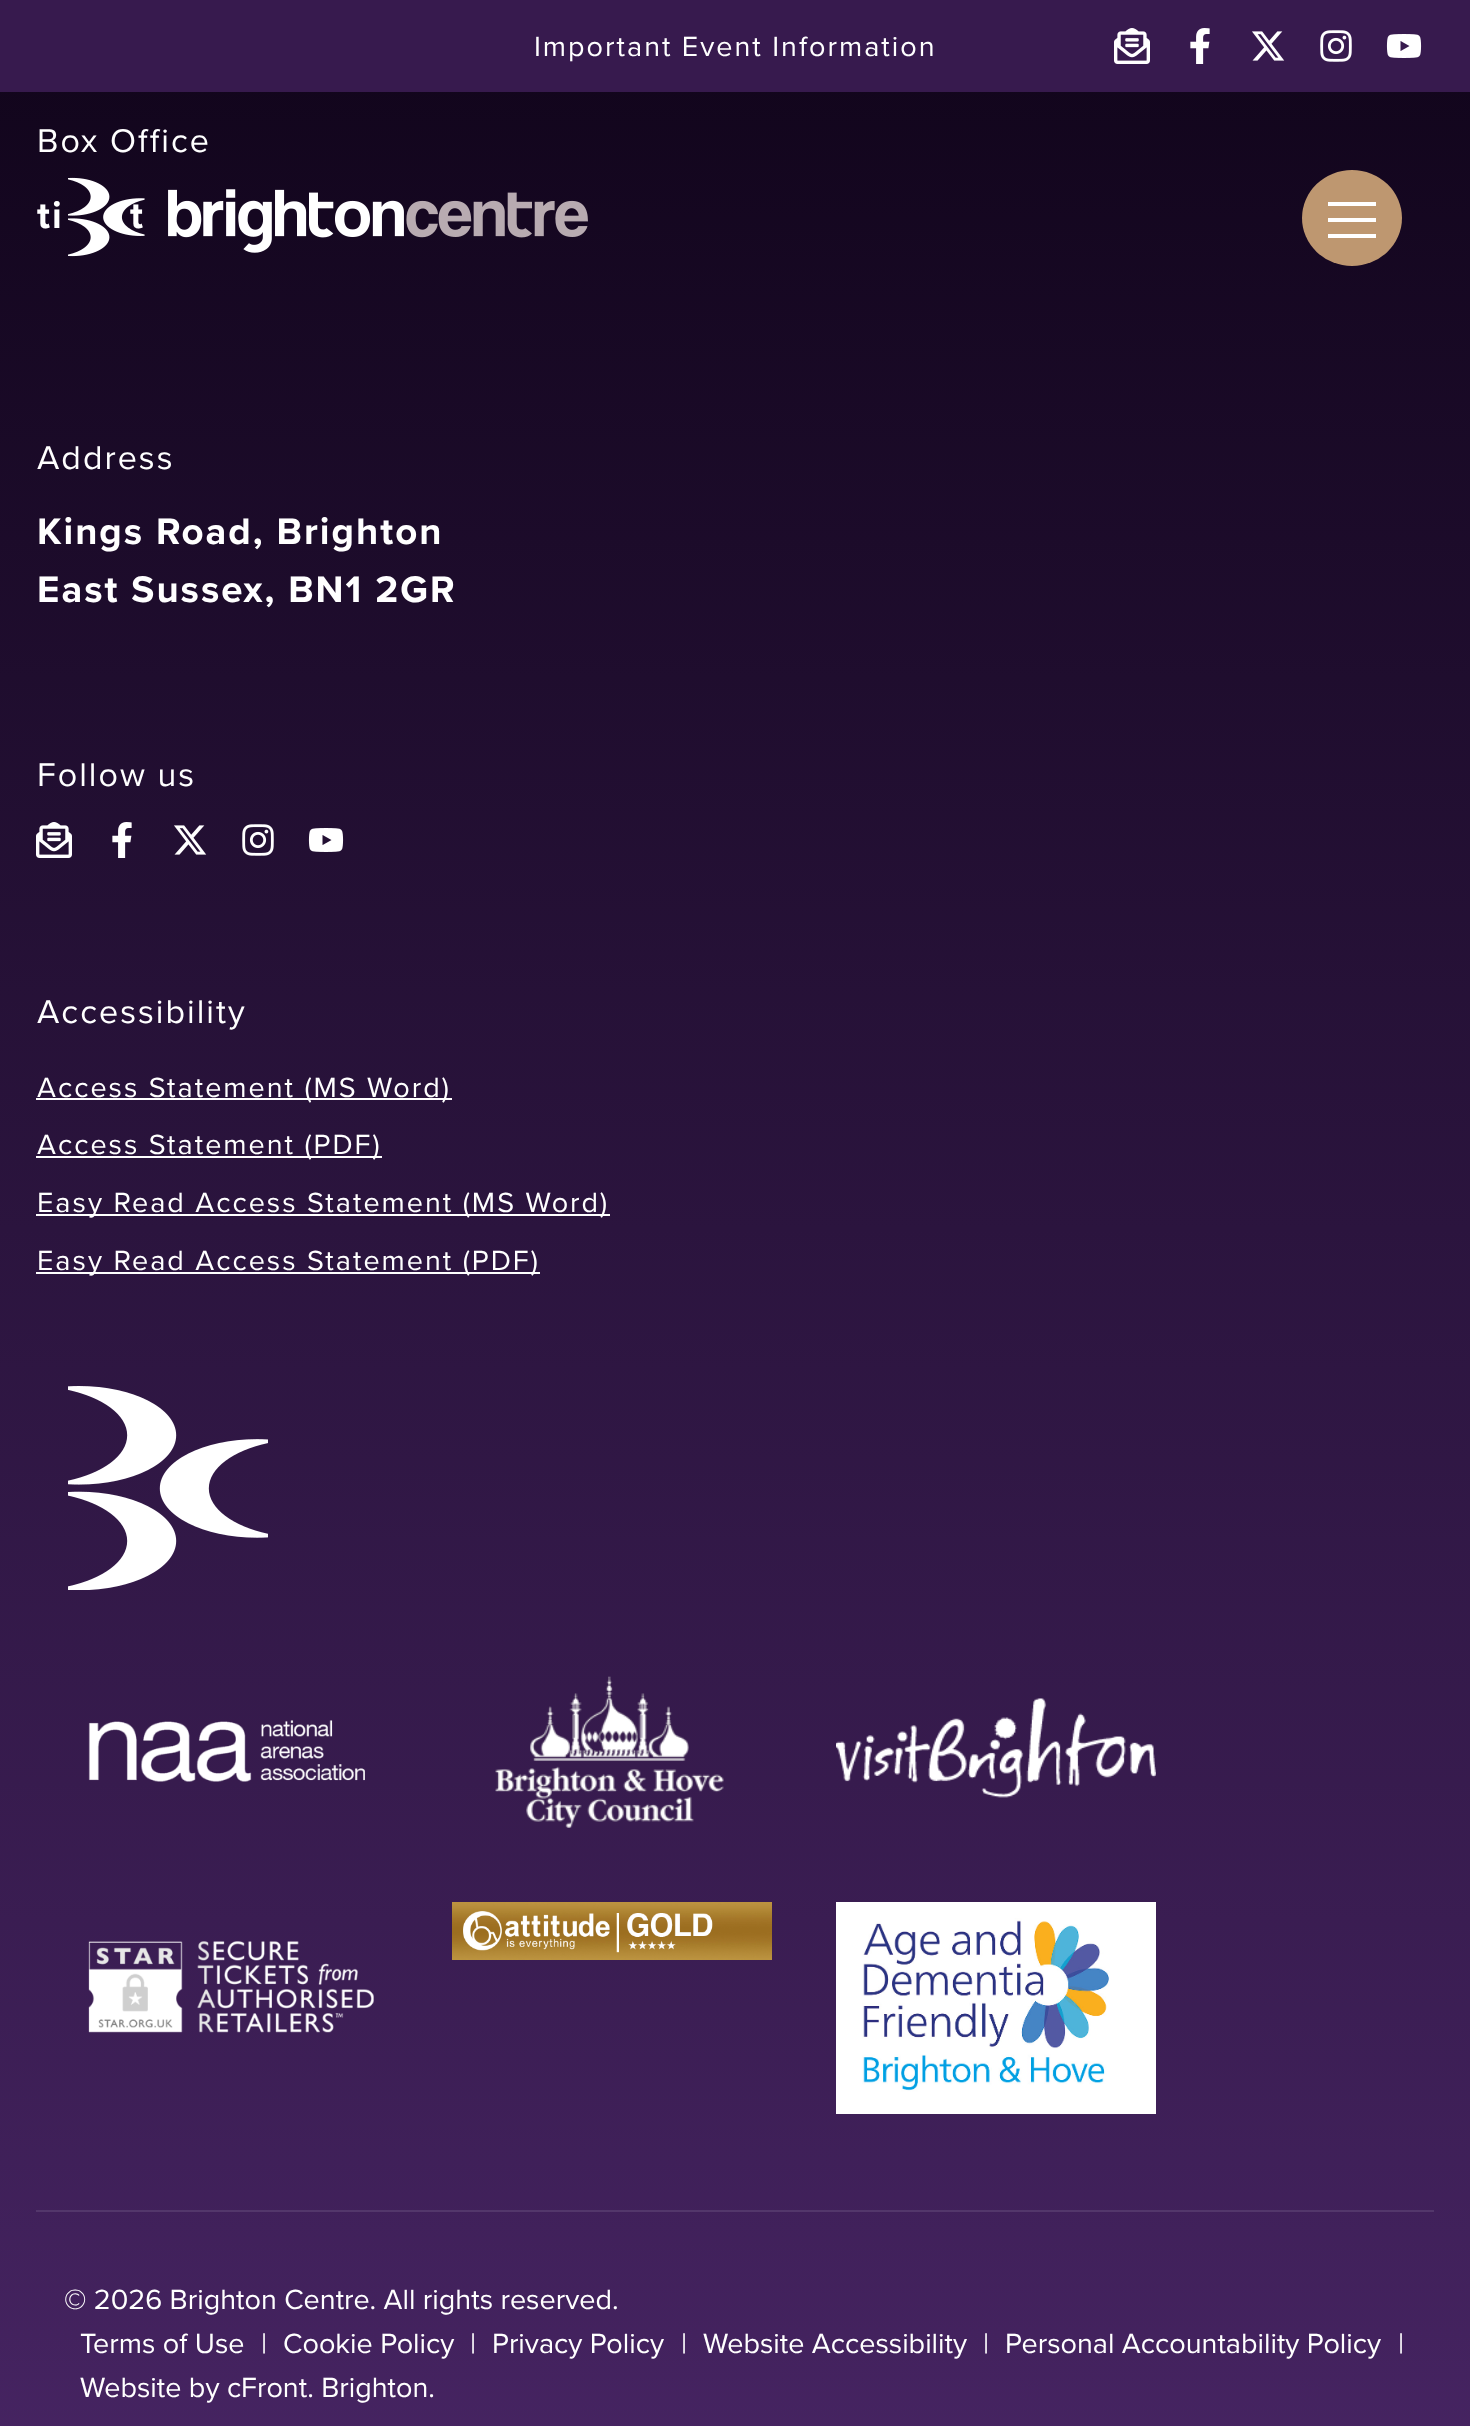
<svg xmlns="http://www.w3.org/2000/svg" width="1470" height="2426">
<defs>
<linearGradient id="g1" gradientUnits="userSpaceOnUse" x1="735" y1="-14" x2="735" y2="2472"><stop offset="0" stop-color="#fff"/><stop offset="0" stop-color="#10041a"/><stop offset="1" stop-color="#462462"/></linearGradient>
</defs>
<rect width="100%" height="100%" fill="#fff"/>
<rect width="1470" height="92" fill="#371a4e"/>
<text x="534" y="56" style="font-family:Proxima Nova;font-size:28.75px;letter-spacing:2px;fill:#fff">Important Event Information</text>
<image x="1114" y="28" width="36" height="36" href="media/1.png"/>
<image x="1190" y="28" width="20" height="36" href="media/2.png"/>
<image x="1252" y="31" width="33" height="30" href="media/3.png"/>
<image x="1320" y="30" width="32" height="32" href="media/4.png"/>
<image x="1386" y="34" width="36" height="24" href="media/5.png"/>
<rect y="92" width="1470" height="2334" fill="url(#g1)"/>
<text x="130" y="228" style="font-family:Proxima Nova;font-size:38.4px;font-weight:bold;letter-spacing:2px;fill:#fff">t</text>
<image x="68" y="177" width="520" height="80" href="media/6.png"/>
<ellipse cx="1352" cy="218" rx="50" ry="48" fill="#be9770"/>
<rect x="1328" y="202" width="48" height="4" fill="#fff"/>
<rect x="1328" y="218" width="48" height="4" fill="#fff"/>
<rect x="1328" y="234" width="48" height="4" fill="#fff"/>
<rect x="36" y="2210" width="1398" height="2" fill="#53376b"/>
<text x="37" y="152" style="font-family:Proxima Nova;font-size:34px;letter-spacing:2px;fill:#fff">Box Office</text>
<text x="37" y="228" style="font-family:Proxima Nova;font-size:38.4px;font-weight:bold;letter-spacing:2px;fill:#fff">ti</text>
<text x="37" y="469" style="font-family:Proxima Nova;font-size:34px;letter-spacing:2px;fill:#fff">Address</text>
<text x="37" y="544" style="font-family:Proxima Nova;font-size:38.4px;font-weight:bold;letter-spacing:2px;fill:#fff">Kings Road, Brighton</text>
<text x="37" y="602" style="font-family:Proxima Nova;font-size:38.4px;font-weight:bold;letter-spacing:2px;fill:#fff">East Sussex, BN1 2GR</text>
<text x="37" y="786" style="font-family:Proxima Nova;font-size:34px;letter-spacing:2px;fill:#fff">Follow us</text>
<image x="36" y="822" width="36" height="36" href="media/7.png"/>
<image x="112" y="822" width="20" height="36" href="media/8.png"/>
<image x="174" y="825" width="33" height="30" href="media/9.png"/>
<image x="242" y="824" width="32" height="32" href="media/10.png"/>
<image x="308" y="828" width="36" height="24" href="media/11.png"/>
<text x="37" y="1023" style="font-family:Proxima Nova;font-size:34px;letter-spacing:2px;fill:#fff">Accessibility</text>
<rect x="36" y="1098" width="416" height="2" fill="#fff"/>
<text x="37" y="1097" style="font-family:Proxima Nova;font-size:28.75px;letter-spacing:2px;fill:#fff">Access Statement (MS Word)</text>
<rect x="36" y="1156" width="346" height="2" fill="#fff"/>
<text x="37" y="1154" style="font-family:Proxima Nova;font-size:28.75px;letter-spacing:2px;fill:#fff">Access Statement (PDF)</text>
<rect x="36" y="1214" width="574" height="2" fill="#fff"/>
<text x="37" y="1212" style="font-family:Proxima Nova;font-size:28.75px;letter-spacing:2px;fill:#fff">Easy Read Access Statement (MS Word)</text>
<rect x="36" y="1272" width="504" height="2" fill="#fff"/>
<text x="37" y="1270" style="font-family:Proxima Nova;font-size:28.75px;letter-spacing:2px;fill:#fff">Easy Read Access Statement (PDF)</text>
<image x="68" y="1386" width="200" height="204" href="media/12.png"/>
<image x="88" y="1720" width="277" height="62" href="media/13.png"/>
<image x="495" y="1676" width="229" height="152" href="media/14.png"/>
<image x="836" y="1698" width="320" height="100" href="media/15.png"/>
<image x="88" y="1941" width="286" height="92" href="media/16.png"/>
<image x="452" y="1902" width="320" height="58" href="media/17.png"/>
<image x="836" y="1902" width="320" height="212" href="media/18.png"/>
<text x="64" y="2309" style="font-family:Proxima Nova;font-size:28.75px;fill:#fff">© 2026 Brighton Centre. All rights reserved.</text>
<text x="80" y="2353" style="font-family:Proxima Nova;font-size:28.75px;fill:#fff">Terms of Use</text>
<text x="261" y="2353" style="font-family:Proxima Nova;font-size:28.75px;fill:#fff">|</text>
<text x="283" y="2353" style="font-family:Proxima Nova;font-size:28.75px;fill:#fff">Cookie Policy</text>
<text x="470" y="2353" style="font-family:Proxima Nova;font-size:28.75px;fill:#fff">|</text>
<text x="492" y="2353" style="font-family:Proxima Nova;font-size:28.75px;fill:#fff">Privacy Policy</text>
<text x="681" y="2353" style="font-family:Proxima Nova;font-size:28.75px;fill:#fff">|</text>
<text x="703" y="2353" style="font-family:Proxima Nova;font-size:28.75px;fill:#fff">Website Accessibility</text>
<text x="983" y="2353" style="font-family:Proxima Nova;font-size:28.75px;fill:#fff">|</text>
<text x="1005" y="2353" style="font-family:Proxima Nova;font-size:28.75px;fill:#fff">Personal Accountability Policy</text>
<text x="1398" y="2353" style="font-family:Proxima Nova;font-size:28.75px;fill:#fff">|</text>
<text x="80" y="2397" style="font-family:Proxima Nova;font-size:28.75px;fill:#fff">Website by cFront. Brighton.</text>
</svg>
